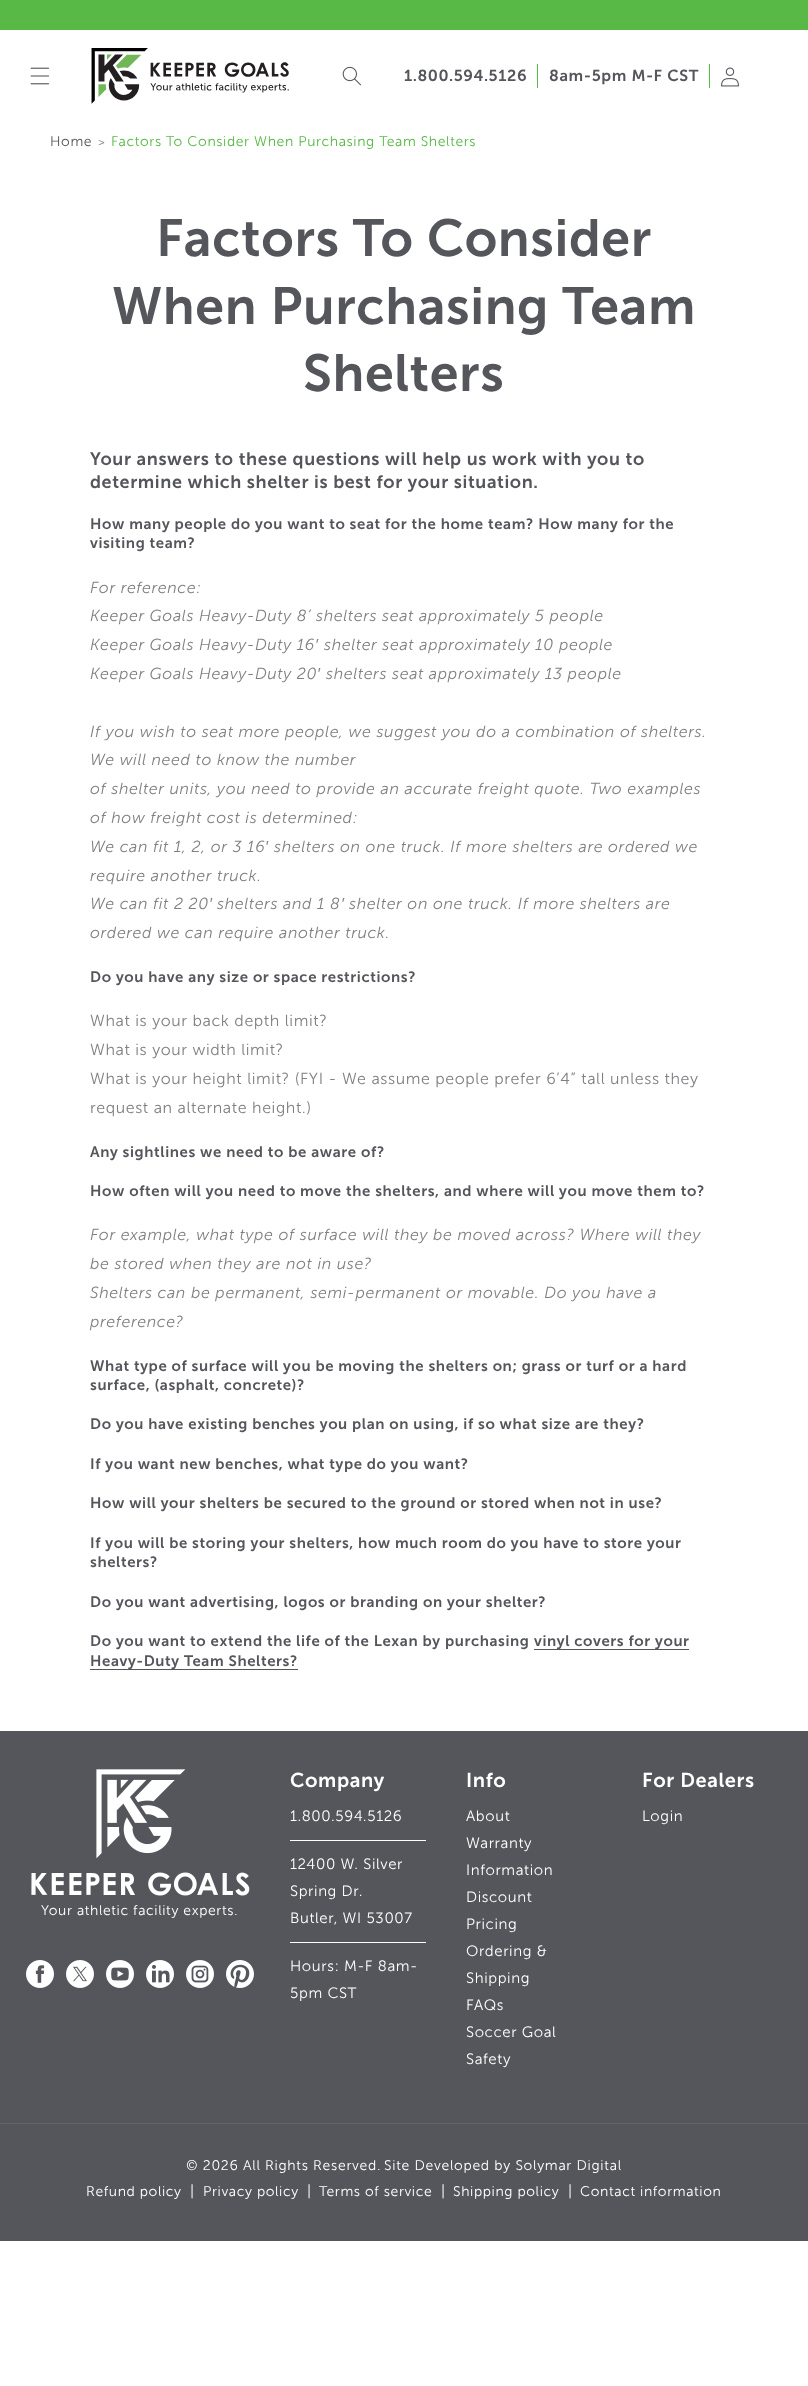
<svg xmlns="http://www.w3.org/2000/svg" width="808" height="2386">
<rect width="100%" height="100%" fill="#fff"/>
<rect width="808" height="30" fill="#58b947"/>
<image x="30" y="67" width="20" height="18" href="media/1.png"/>
<image x="91" y="48" width="198" height="56" href="media/2.png"/>
<image x="342" y="66" width="19" height="20" href="media/3.png"/>
<rect x="537" y="64" width="1" height="24" fill="#58b947"/>
<text x="404" y="81" style="font-family:'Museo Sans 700';font-size:16px;font-weight:600;letter-spacing:0.6px;fill:#54565b">1.800.594.5126</text>
<rect x="709" y="64" width="1" height="24" fill="#58b947"/>
<text x="549" y="81" style="font-family:'Museo Sans 700';font-size:16px;font-weight:600;letter-spacing:0.6px;fill:#54565b">8am-5pm M-F CST</text>
<image x="721" y="67" width="18" height="20" href="media/4.png"/>
<text x="50" y="146" style="font-family:'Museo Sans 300';font-size:14px;font-weight:300;letter-spacing:0.6px;fill:#54565b">Home</text>
<text x="98" y="146" style="font-family:'Museo Sans 300';font-size:12px;font-weight:300;letter-spacing:0.6px;fill:#7f8084">&gt;</text>
<text x="111" y="146" style="font-family:'Museo Sans 300';font-size:14px;font-weight:300;letter-spacing:0.6px;fill:#58b947">Factors To Consider When Purchasing Team Shelters</text>
<text x="156" y="256" style="font-family:'Museo Sans 700';font-size:52px;font-weight:600;letter-spacing:0.6px;fill:#54565b">Factors To Consider</text>
<text x="112" y="324" style="font-family:'Museo Sans 700';font-size:52px;font-weight:600;letter-spacing:0.6px;fill:#54565b">When Purchasing Team</text>
<text x="303" y="391" style="font-family:'Museo Sans 700';font-size:52px;font-weight:600;letter-spacing:0.6px;fill:#54565b">Shelters</text>
<text x="90" y="465" style="font-family:'Museo Sans 700';font-size:18px;font-weight:600;letter-spacing:0.6px;fill:#54565b">Your answers to these questions will help us work with you to</text>
<text x="90" y="488" style="font-family:'Museo Sans 700';font-size:18px;font-weight:600;letter-spacing:0.6px;fill:#54565b">determine which shelter is best for your situation.</text>
<text x="90" y="529" style="font-family:'Museo Sans 700';font-size:15px;font-weight:600;letter-spacing:0.6px;fill:#54565b">How many people do you want to seat for the home team? How many for the</text>
<text x="90" y="548" style="font-family:'Museo Sans 700';font-size:15px;font-weight:600;letter-spacing:0.6px;fill:#54565b">visiting team?</text>
<text x="90" y="593" style="font-family:'Museo Sans 300';font-size:16px;font-weight:300;font-style:italic;letter-spacing:0.6px;fill:#7f8084">For reference:</text>
<text x="90" y="621" style="font-family:'Museo Sans 300';font-size:16px;font-weight:300;font-style:italic;letter-spacing:0.6px;fill:#7f8084">Keeper Goals Heavy-Duty 8’ shelters seat approximately 5 people</text>
<text x="90" y="650" style="font-family:'Museo Sans 300';font-size:16px;font-weight:300;font-style:italic;letter-spacing:0.6px;fill:#7f8084">Keeper Goals Heavy-Duty 16</text>
<text x="315" y="650" style="font-family:Liberation Sans;font-size:16px;font-style:italic;letter-spacing:0.6px;fill:#7f8084">′</text>
<text x="324" y="650" style="font-family:'Museo Sans 300';font-size:16px;font-weight:300;font-style:italic;letter-spacing:0.6px;fill:#7f8084">shelter seat approximately 10 people</text>
<text x="90" y="679" style="font-family:'Museo Sans 300';font-size:16px;font-weight:300;font-style:italic;letter-spacing:0.6px;fill:#7f8084">Keeper Goals Heavy-Duty 20</text>
<text x="317" y="679" style="font-family:Liberation Sans;font-size:16px;font-style:italic;letter-spacing:0.6px;fill:#7f8084">′</text>
<text x="326" y="679" style="font-family:'Museo Sans 300';font-size:16px;font-weight:300;font-style:italic;letter-spacing:0.6px;fill:#7f8084">shelters seat approximately 13 people</text>
<text x="90" y="737" style="font-family:'Museo Sans 300';font-size:16px;font-weight:300;font-style:italic;letter-spacing:0.6px;fill:#7f8084">If you wish to seat more people, we suggest you do a combination of shelters.</text>
<text x="90" y="765" style="font-family:'Museo Sans 300';font-size:16px;font-weight:300;font-style:italic;letter-spacing:0.6px;fill:#7f8084">We will need to know the number</text>
<text x="90" y="794" style="font-family:'Museo Sans 300';font-size:16px;font-weight:300;font-style:italic;letter-spacing:0.6px;fill:#7f8084">of shelter units, you need to provide an accurate freight quote. Two examples</text>
<text x="90" y="823" style="font-family:'Museo Sans 300';font-size:16px;font-weight:300;font-style:italic;letter-spacing:0.6px;fill:#7f8084">of how freight cost is determined:</text>
<text x="90" y="852" style="font-family:'Museo Sans 300';font-size:16px;font-weight:300;font-style:italic;letter-spacing:0.6px;fill:#7f8084">We can fit 1, 2, or 3 16</text>
<text x="265" y="852" style="font-family:Liberation Sans;font-size:16px;font-style:italic;letter-spacing:0.6px;fill:#7f8084">′</text>
<text x="274" y="852" style="font-family:'Museo Sans 300';font-size:16px;font-weight:300;font-style:italic;letter-spacing:0.6px;fill:#7f8084">shelters on one truck. If more shelters are ordered we</text>
<text x="90" y="881" style="font-family:'Museo Sans 300';font-size:16px;font-weight:300;font-style:italic;letter-spacing:0.6px;fill:#7f8084">require another truck.</text>
<text x="90" y="909" style="font-family:'Museo Sans 300';font-size:16px;font-weight:300;font-style:italic;letter-spacing:0.6px;fill:#7f8084">We can fit 2 20</text>
<text x="209" y="909" style="font-family:Liberation Sans;font-size:16px;font-style:italic;letter-spacing:0.6px;fill:#7f8084">′</text>
<text x="217" y="909" style="font-family:'Museo Sans 300';font-size:16px;font-weight:300;font-style:italic;letter-spacing:0.6px;fill:#7f8084">shelters and 1 8</text>
<text x="341" y="909" style="font-family:Liberation Sans;font-size:16px;font-style:italic;letter-spacing:0.6px;fill:#7f8084">′</text>
<text x="349" y="909" style="font-family:'Museo Sans 300';font-size:16px;font-weight:300;font-style:italic;letter-spacing:0.6px;fill:#7f8084">shelter on one truck. If more shelters are</text>
<text x="90" y="938" style="font-family:'Museo Sans 300';font-size:16px;font-weight:300;font-style:italic;letter-spacing:0.6px;fill:#7f8084">ordered we can require another truck.</text>
<text x="90" y="982" style="font-family:'Museo Sans 700';font-size:15px;font-weight:600;letter-spacing:0.6px;fill:#54565b">Do you have any size or space restrictions?</text>
<text x="90" y="1026" style="font-family:'Museo Sans 300';font-size:16px;font-weight:300;letter-spacing:0.6px;fill:#7f8084">What is your back depth limit?</text>
<text x="90" y="1055" style="font-family:'Museo Sans 300';font-size:16px;font-weight:300;letter-spacing:0.6px;fill:#7f8084">What is your width limit?</text>
<text x="90" y="1084" style="font-family:'Museo Sans 300';font-size:16px;font-weight:300;letter-spacing:0.6px;fill:#7f8084">What is your height limit? (FYI - We assume people prefer 6’4” tall unless they</text>
<text x="90" y="1113" style="font-family:'Museo Sans 300';font-size:16px;font-weight:300;letter-spacing:0.6px;fill:#7f8084">request an alternate height.)</text>
<text x="90" y="1157" style="font-family:'Museo Sans 700';font-size:15px;font-weight:600;letter-spacing:0.6px;fill:#54565b">Any sightlines we need to be aware of?</text>
<text x="90" y="1196" style="font-family:'Museo Sans 700';font-size:15px;font-weight:600;letter-spacing:0.6px;fill:#54565b">How often will you need to move the shelters, and where will you move them to?</text>
<text x="90" y="1240" style="font-family:'Museo Sans 300';font-size:16px;font-weight:300;font-style:italic;letter-spacing:0.6px;fill:#7f8084">For example, what type of surface will they be moved across? Where will they</text>
<text x="90" y="1269" style="font-family:'Museo Sans 300';font-size:16px;font-weight:300;font-style:italic;letter-spacing:0.6px;fill:#7f8084">be stored when they are not in use?</text>
<text x="90" y="1298" style="font-family:'Museo Sans 300';font-size:16px;font-weight:300;font-style:italic;letter-spacing:0.6px;fill:#7f8084">Shelters can be permanent, semi-permanent or movable. Do you have a</text>
<text x="90" y="1327" style="font-family:'Museo Sans 300';font-size:16px;font-weight:300;font-style:italic;letter-spacing:0.6px;fill:#7f8084">preference?</text>
<text x="90" y="1371" style="font-family:'Museo Sans 700';font-size:15px;font-weight:600;letter-spacing:0.6px;fill:#54565b">What type of surface will you be moving the shelters on; grass or turf or a hard</text>
<text x="90" y="1390" style="font-family:'Museo Sans 700';font-size:15px;font-weight:600;letter-spacing:0.6px;fill:#54565b">surface, (asphalt, concrete)?</text>
<text x="90" y="1429" style="font-family:'Museo Sans 700';font-size:15px;font-weight:600;letter-spacing:0.6px;fill:#54565b">Do you have existing benches you plan on using, if so what size are they?</text>
<text x="90" y="1469" style="font-family:'Museo Sans 700';font-size:15px;font-weight:600;letter-spacing:0.6px;fill:#54565b">If you want new benches, what type do you want?</text>
<text x="90" y="1508" style="font-family:'Museo Sans 700';font-size:15px;font-weight:600;letter-spacing:0.6px;fill:#54565b">How will your shelters be secured to the ground or stored when not in use?</text>
<text x="90" y="1548" style="font-family:'Museo Sans 700';font-size:15px;font-weight:600;letter-spacing:0.6px;fill:#54565b">If you will be storing your shelters, how much room do you have to store your</text>
<text x="90" y="1567" style="font-family:'Museo Sans 700';font-size:15px;font-weight:600;letter-spacing:0.6px;fill:#54565b">shelters?</text>
<text x="90" y="1607" style="font-family:'Museo Sans 700';font-size:15px;font-weight:600;letter-spacing:0.6px;fill:#54565b">Do you want advertising, logos or branding on your shelter?</text>
<text x="90" y="1646" style="font-family:'Museo Sans 700';font-size:15px;font-weight:600;letter-spacing:0.6px;fill:#54565b">Do you want to extend the life of the Lexan by purchasing</text>
<rect x="534" y="1649" width="155" height="1" fill="#54565b"/>
<text x="534" y="1646" style="font-family:'Museo Sans 700';font-size:15px;font-weight:600;letter-spacing:0.6px;fill:#54565b">vinyl covers for your</text>
<rect x="90" y="1669" width="208" height="1" fill="#54565b"/>
<text x="90" y="1666" style="font-family:'Museo Sans 700';font-size:15px;font-weight:600;letter-spacing:0.6px;fill:#54565b">Heavy-Duty Team Shelters?</text>
<rect y="1731" width="808" height="510" fill="#54565b"/>
<text x="290" y="1787" style="font-family:'Museo Sans 700';font-size:20px;font-weight:600;letter-spacing:0.6px;fill:#fff">Company</text>
<rect x="290" y="1840" width="136" height="1" fill="#fff"/>
<text x="290" y="1821" style="font-family:'Museo Sans 300';font-size:15px;font-weight:300;letter-spacing:0.6px;fill:#fff">1.800.594.5126</text>
<rect x="290" y="1942" width="136" height="1" fill="#fff"/>
<text x="290" y="1869" style="font-family:'Museo Sans 300';font-size:15px;font-weight:300;letter-spacing:0.6px;fill:#fff">12400 W. Silver</text>
<text x="290" y="1896" style="font-family:'Museo Sans 300';font-size:15px;font-weight:300;letter-spacing:0.6px;fill:#fff">Spring Dr.</text>
<text x="290" y="1923" style="font-family:'Museo Sans 300';font-size:15px;font-weight:300;letter-spacing:0.6px;fill:#fff">Butler, WI 53007</text>
<text x="290" y="1971" style="font-family:'Museo Sans 300';font-size:15px;font-weight:300;letter-spacing:0.6px;fill:#fff">Hours: M-F 8am-</text>
<text x="290" y="1998" style="font-family:'Museo Sans 300';font-size:15px;font-weight:300;letter-spacing:0.6px;fill:#fff">5pm CST</text>
<text x="466" y="1787" style="font-family:'Museo Sans 700';font-size:20px;font-weight:600;letter-spacing:0.6px;fill:#fff">Info</text>
<text x="466" y="1821" style="font-family:'Museo Sans 300';font-size:15px;font-weight:300;letter-spacing:0.6px;fill:#fff">About</text>
<text x="466" y="1848" style="font-family:'Museo Sans 300';font-size:15px;font-weight:300;letter-spacing:0.6px;fill:#fff">Warranty</text>
<text x="466" y="1875" style="font-family:'Museo Sans 300';font-size:15px;font-weight:300;letter-spacing:0.6px;fill:#fff">Information</text>
<text x="466" y="1902" style="font-family:'Museo Sans 300';font-size:15px;font-weight:300;letter-spacing:0.6px;fill:#fff">Discount</text>
<text x="466" y="1929" style="font-family:'Museo Sans 300';font-size:15px;font-weight:300;letter-spacing:0.6px;fill:#fff">Pricing</text>
<text x="466" y="1956" style="font-family:'Museo Sans 300';font-size:15px;font-weight:300;letter-spacing:0.6px;fill:#fff">Ordering &amp;</text>
<text x="466" y="1983" style="font-family:'Museo Sans 300';font-size:15px;font-weight:300;letter-spacing:0.6px;fill:#fff">Shipping</text>
<text x="466" y="2010" style="font-family:'Museo Sans 300';font-size:15px;font-weight:300;letter-spacing:0.6px;fill:#fff">FAQs</text>
<text x="466" y="2037" style="font-family:'Museo Sans 300';font-size:15px;font-weight:300;letter-spacing:0.6px;fill:#fff">Soccer Goal</text>
<text x="466" y="2064" style="font-family:'Museo Sans 300';font-size:15px;font-weight:300;letter-spacing:0.6px;fill:#fff">Safety</text>
<text x="642" y="1787" style="font-family:'Museo Sans 700';font-size:20px;font-weight:600;letter-spacing:0.6px;fill:#fff">For Dealers</text>
<text x="642" y="1821" style="font-family:'Museo Sans 300';font-size:15px;font-weight:300;letter-spacing:0.6px;fill:#fff">Login</text>
<image x="31" y="1769" width="219" height="127" href="media/5.png"/>
<text x="41" y="1915" style="font-family:'Museo Sans 300';font-size:14px;font-weight:300;letter-spacing:0.6px;fill:#fff">Your athletic facility experts.</text>
<image x="26" y="1960" width="28" height="28" href="media/6.png"/>
<image x="66" y="1960" width="28" height="28" href="media/7.png"/>
<image x="106" y="1960" width="28" height="28" href="media/8.png"/>
<image x="146" y="1960" width="28" height="28" href="media/9.png"/>
<image x="186" y="1960" width="28" height="28" href="media/10.png"/>
<image x="226" y="1960" width="28" height="28" href="media/11.png"/>
<rect y="2123" width="808" height="1" fill="#626468"/>
<text x="186" y="2170" style="font-family:'Museo Sans 300';font-size:14px;font-weight:300;letter-spacing:0.7px;fill:#fff">© 2026 All Rights Reserved.</text>
<text x="384" y="2170" style="font-family:'Museo Sans 300';font-size:14px;font-weight:300;letter-spacing:0.7px;fill:#fff">Site Developed by Solymar Digital</text>
<text x="86" y="2196" style="font-family:'Museo Sans 300';font-size:14px;font-weight:300;letter-spacing:0.6px;fill:#fff">Refund policy</text>
<text x="190" y="2196" style="font-family:'Museo Sans 300';font-size:15px;font-weight:300;letter-spacing:0.6px;fill:#fff">|</text>
<text x="203" y="2196" style="font-family:'Museo Sans 300';font-size:14px;font-weight:300;letter-spacing:0.6px;fill:#fff">Privacy policy</text>
<text x="307" y="2196" style="font-family:'Museo Sans 300';font-size:15px;font-weight:300;letter-spacing:0.6px;fill:#fff">|</text>
<text x="319" y="2196" style="font-family:'Museo Sans 300';font-size:14px;font-weight:300;letter-spacing:0.6px;fill:#fff">Terms of service</text>
<text x="441" y="2196" style="font-family:'Museo Sans 300';font-size:15px;font-weight:300;letter-spacing:0.6px;fill:#fff">|</text>
<text x="453" y="2196" style="font-family:'Museo Sans 300';font-size:14px;font-weight:300;letter-spacing:0.6px;fill:#fff">Shipping policy</text>
<text x="568" y="2196" style="font-family:'Museo Sans 300';font-size:15px;font-weight:300;letter-spacing:0.6px;fill:#fff">|</text>
<text x="580" y="2196" style="font-family:'Museo Sans 300';font-size:14px;font-weight:300;letter-spacing:0.6px;fill:#fff">Contact information</text>
</svg>
